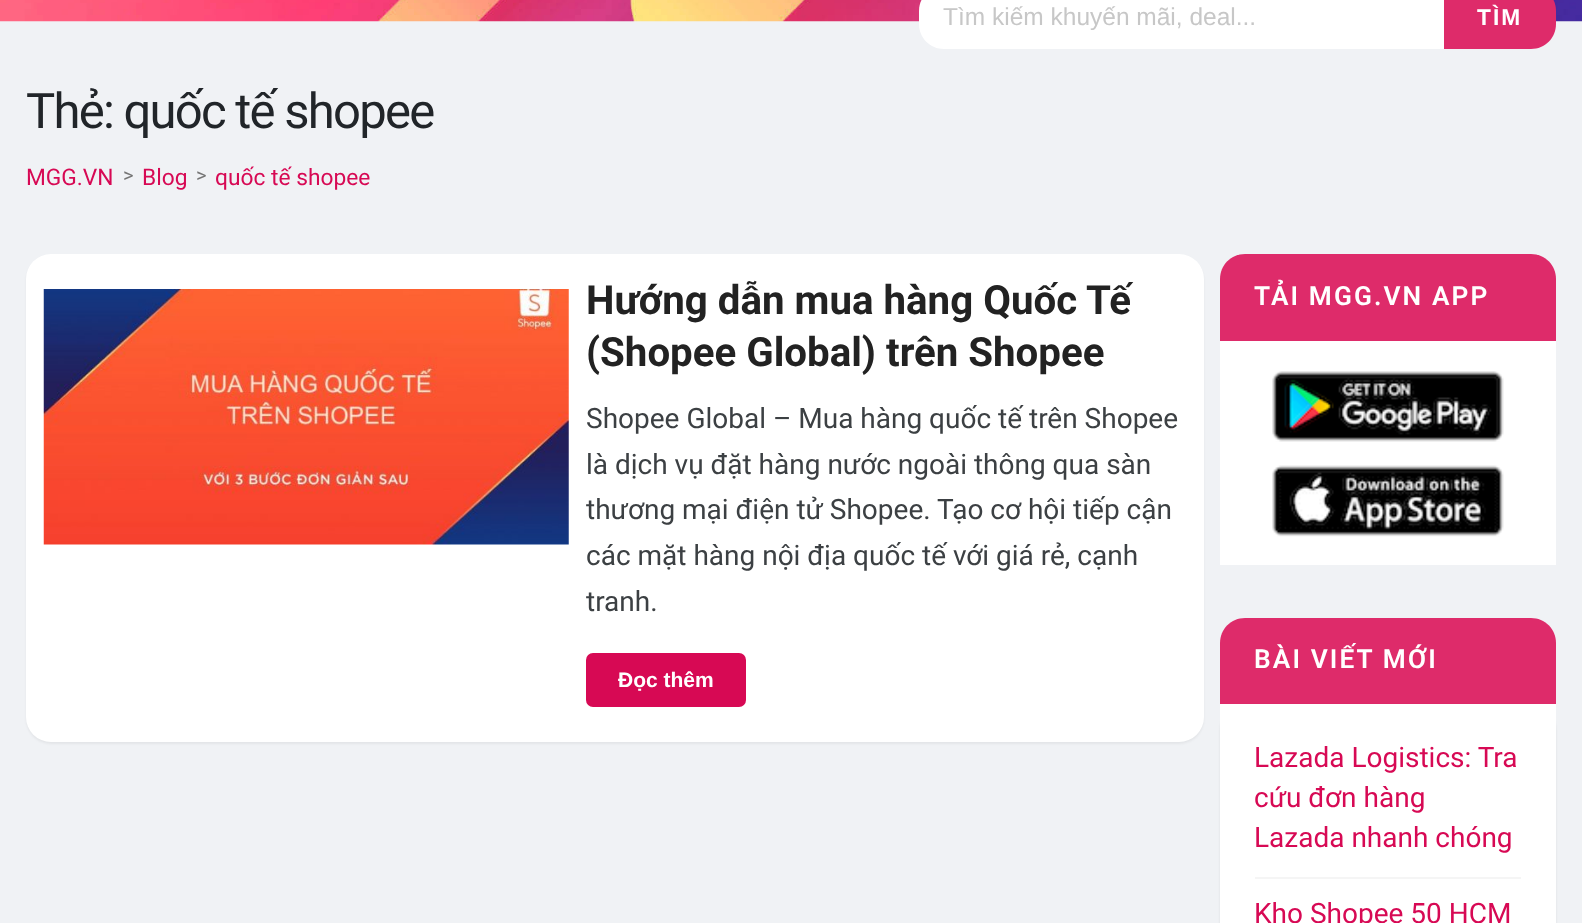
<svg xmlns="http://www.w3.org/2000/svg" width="1582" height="923">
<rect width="100%" height="100%" fill="#f0f2f5"/>
<image x="0" y="0" width="1582" height="22" href="media/1.png"/>
<path d="M944-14h500v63h-500c-14 0-25-11-25-25v-13c0-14 11-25 25-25z" fill="#fff"/>
<text x="943" y="25" style="font-family:Liberation Sans;font-size:24.5px;fill:#c7c7c7">Tìm kiếm khuyến mãi, deal...</text>
<path d="M1444-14h87c14 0 25 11 25 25v13c0 14-11 25-25 25h-87z" fill="#de2b6a"/>
<text x="1477" y="25" style="font-family:Liberation Sans;font-size:22.75px;font-weight:bold;letter-spacing:2px;fill:#fff">TÌM</text>
<text x="26" y="128" style="font-family:Roboto;font-size:49px;letter-spacing:-1.75px;fill:#212529">Thẻ: quốc tế shopee</text>
<text x="26" y="185" style="font-family:Roboto;font-size:22.75px;fill:#d70954">MGG.VN</text>
<text x="123" y="182" style="font-family:Roboto;font-size:20px;fill:#757575">&gt;</text>
<text x="142" y="185" style="font-family:Roboto;font-size:22.75px;fill:#d70954">Blog</text>
<text x="196" y="182" style="font-family:Roboto;font-size:20px;fill:#757575">&gt;</text>
<text x="215" y="185" style="font-family:Roboto;font-size:22.75px;fill:#d70954">quốc tế shopee</text>
<rect x="26" y="256" width="1178" height="488" rx="25" fill="#0000000d" filter="blur(1px)"/>
<rect x="26" y="254" width="1178" height="488" rx="25" fill="#fff"/>
<image x="43" y="289" width="526" height="256" href="media/2.png"/>
<text x="586" y="314" style="font-family:Roboto;font-size:40.25px;font-weight:bold;fill:#222">Hướng dẫn mua hàng Quốc Tế</text>
<text x="586" y="366" style="font-family:Roboto;font-size:40.25px;font-weight:bold;fill:#222">(Shopee Global) trên Shopee</text>
<text x="586" y="428" style="font-family:Roboto;font-size:28px;fill:#3c4043">Shopee Global – Mua hàng quốc tế trên Shopee</text>
<text x="586" y="474" style="font-family:Roboto;font-size:28px;fill:#3c4043">là dịch vụ đặt hàng nước ngoài thông qua sàn</text>
<text x="586" y="519" style="font-family:Roboto;font-size:28px;fill:#3c4043">thương mại điện tử Shopee. Tạo cơ hội tiếp cận</text>
<text x="586" y="565" style="font-family:Roboto;font-size:28px;fill:#3c4043">các mặt hàng nội địa quốc tế với giá rẻ, cạnh</text>
<text x="586" y="611" style="font-family:Roboto;font-size:28px;fill:#3c4043">tranh.</text>
<rect x="586" y="653" width="160" height="54" rx="7" fill="#d70954"/>
<text x="618" y="687" style="font-family:Liberation Sans;font-size:21px;font-weight:bold;fill:#fff">Đọc thêm</text>
<path d="M1245 254h286c14 0 25 11 25 25v62h-336v-62c0-14 11-25 25-25z" fill="#de2b6a"/>
<text x="1254" y="305" style="font-family:Roboto;font-size:26.25px;font-weight:600;letter-spacing:2.1px;fill:#fff">TẢI MGG.VN APP</text>
<rect x="1220" y="341" width="336" height="224" fill="#fff"/>
<image x="1272" y="371" width="232" height="71" href="media/3.png"/>
<image x="1272" y="465" width="232" height="72" href="media/4.png"/>
<path d="M1245 618h286c14 0 25 11 25 25v61h-336v-61c0-14 11-25 25-25z" fill="#de2b6a"/>
<text x="1254" y="668" style="font-family:Roboto;font-size:26.25px;font-weight:600;letter-spacing:2.1px;fill:#fff">BÀI VIẾT MỚI</text>
<rect x="1220" y="705" width="336" height="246" rx="25" fill="#00000014" filter="blur(1px)"/>
<rect x="1220" y="704" width="336" height="219" fill="#fff"/>
<rect x="1255" y="877" width="266" height="2" fill="#f5f5f5"/>
<text x="1254" y="767" style="font-family:Roboto;font-size:28px;fill:#d70954">Lazada Logistics: Tra</text>
<text x="1254" y="807" style="font-family:Roboto;font-size:28px;fill:#d70954">cứu đơn hàng</text>
<text x="1254" y="847" style="font-family:Roboto;font-size:28px;fill:#d70954">Lazada nhanh chóng</text>
<text x="1254" y="923" style="font-family:Roboto;font-size:28px;fill:#d70954">Kho Shopee 50 HCM</text>
</svg>
